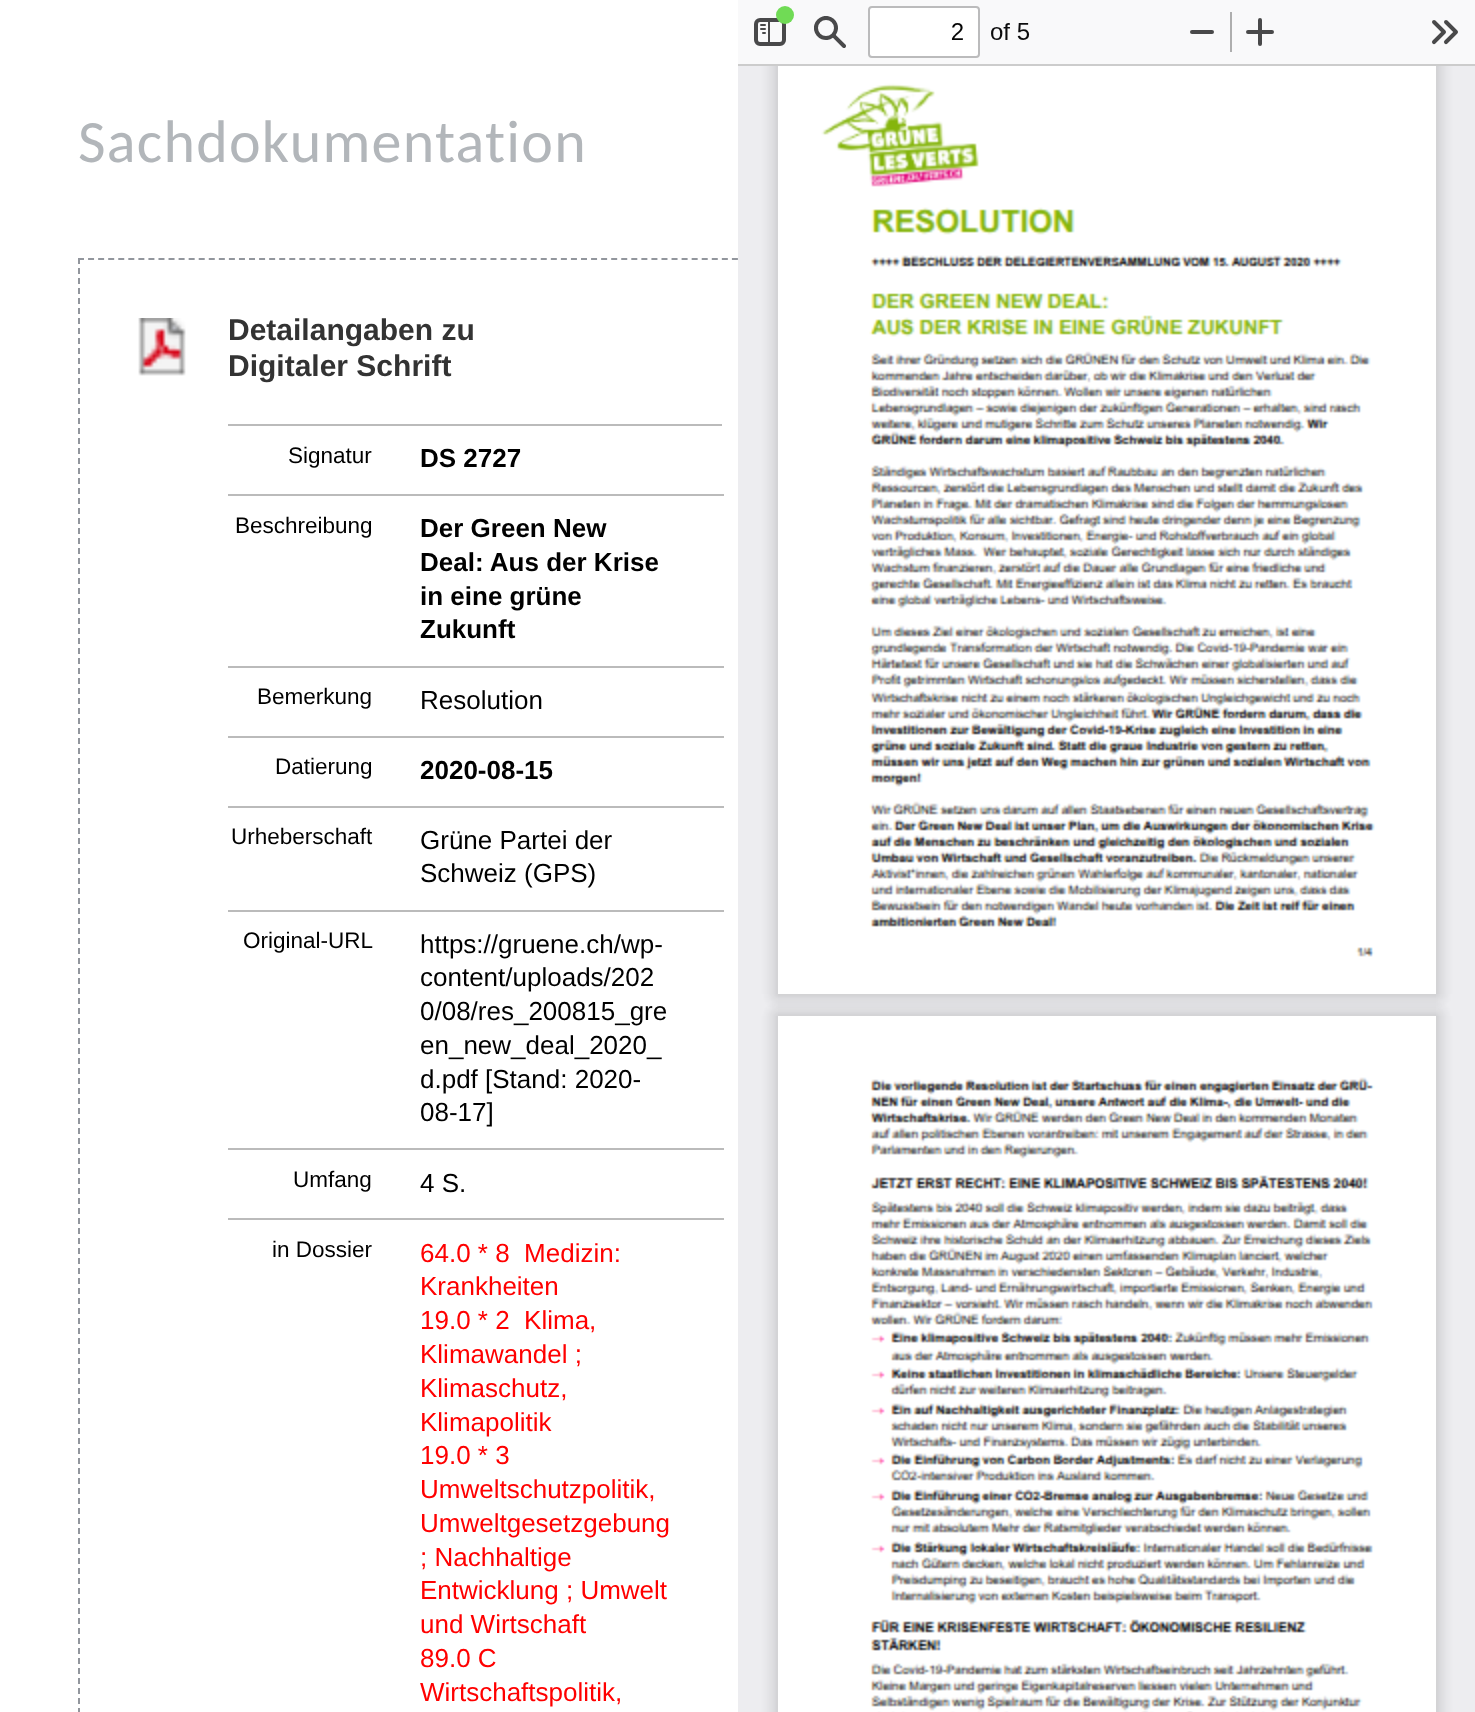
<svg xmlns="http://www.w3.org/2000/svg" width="1475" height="1712">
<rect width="100%" height="100%" fill="#fff"/>
<text x="78" y="162" style="font-family:Carlito;font-size:60px;letter-spacing:1.25px;fill:#b2b6ba">Sachdokumentation</text>
<path d="M78 259h660" fill="none" stroke="#92969d" stroke-width="2" stroke-dasharray="6 4.06"/>
<path d="M79 258v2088" fill="none" stroke="#92969d" stroke-width="2" stroke-dasharray="6 4"/>
<image x="138" y="318" width="48" height="58" href="media/1.png"/>
<text x="228" y="340" style="font-family:Liberation Sans;font-size:30px;font-weight:bold;fill:#333">Detailangaben zu</text>
<text x="228" y="376" style="font-family:Liberation Sans;font-size:30px;font-weight:bold;fill:#333">Digitaler Schrift</text>
<rect x="228" y="424" width="494" height="2" fill="#bbb"/>
<rect x="228" y="494" width="496" height="2" fill="#bbb"/>
<text x="288" y="463" style="font-family:Liberation Sans;font-size:22.5px;fill:#000">Signatur</text>
<text x="420" y="467" style="font-family:Liberation Sans;font-size:26px;font-weight:bold;fill:#000">DS 2727</text>
<rect x="228" y="666" width="496" height="2" fill="#bbb"/>
<text x="235" y="533" style="font-family:Liberation Sans;font-size:22.5px;fill:#000">Beschreibung</text>
<text x="420" y="537" style="font-family:Liberation Sans;font-size:26px;font-weight:bold;fill:#000">Der Green New</text>
<text x="420" y="571" style="font-family:Liberation Sans;font-size:26px;font-weight:bold;fill:#000">Deal: Aus der Krise</text>
<text x="420" y="605" style="font-family:Liberation Sans;font-size:26px;font-weight:bold;fill:#000">in eine grüne</text>
<text x="420" y="638" style="font-family:Liberation Sans;font-size:26px;font-weight:bold;fill:#000">Zukunft</text>
<rect x="228" y="736" width="496" height="2" fill="#bbb"/>
<text x="257" y="704" style="font-family:Liberation Sans;font-size:22.5px;fill:#000">Bemerkung</text>
<text x="420" y="709" style="font-family:Liberation Sans;font-size:26px;fill:#000">Resolution</text>
<rect x="228" y="806" width="496" height="2" fill="#bbb"/>
<text x="275" y="774" style="font-family:Liberation Sans;font-size:22.5px;fill:#000">Datierung</text>
<text x="420" y="779" style="font-family:Liberation Sans;font-size:26px;font-weight:bold;fill:#000">2020-08-15</text>
<rect x="228" y="910" width="496" height="2" fill="#bbb"/>
<text x="231" y="844" style="font-family:Liberation Sans;font-size:22.5px;fill:#000">Urheberschaft</text>
<text x="420" y="849" style="font-family:Liberation Sans;font-size:26px;fill:#000">Grüne Partei der</text>
<text x="420" y="882" style="font-family:Liberation Sans;font-size:26px;fill:#000">Schweiz (GPS)</text>
<rect x="228" y="1148" width="496" height="2" fill="#bbb"/>
<text x="243" y="948" style="font-family:Liberation Sans;font-size:22.5px;fill:#000">Original-URL</text>
<text x="420" y="953" style="font-family:Liberation Sans;font-size:26px;fill:#000">https://gruene.ch/wp-</text>
<text x="420" y="986" style="font-family:Liberation Sans;font-size:26px;fill:#000">content/uploads/202</text>
<text x="420" y="1020" style="font-family:Liberation Sans;font-size:26px;fill:#000">0/08/res_200815_gre</text>
<text x="420" y="1054" style="font-family:Liberation Sans;font-size:26px;fill:#000">en_new_deal_2020_</text>
<text x="420" y="1088" style="font-family:Liberation Sans;font-size:26px;fill:#000">d.pdf [Stand: 2020-</text>
<text x="420" y="1121" style="font-family:Liberation Sans;font-size:26px;fill:#000">08-17]</text>
<rect x="228" y="1218" width="496" height="2" fill="#bbb"/>
<text x="293" y="1187" style="font-family:Liberation Sans;font-size:22.5px;fill:#000">Umfang</text>
<text x="420" y="1192" style="font-family:Liberation Sans;font-size:26px;fill:#000">4 S.</text>
<text x="272" y="1257" style="font-family:Liberation Sans;font-size:22.5px;fill:#000">in Dossier</text>
<text x="420" y="1262" style="font-family:Liberation Sans;font-size:26px;fill:#f00" xml:space="preserve">64.0 * 8  Medizin:</text>
<text x="420" y="1295" style="font-family:Liberation Sans;font-size:26px;fill:#f00">Krankheiten</text>
<text x="420" y="1329" style="font-family:Liberation Sans;font-size:26px;fill:#f00" xml:space="preserve">19.0 * 2  Klima,</text>
<text x="420" y="1363" style="font-family:Liberation Sans;font-size:26px;fill:#f00">Klimawandel ;</text>
<text x="420" y="1397" style="font-family:Liberation Sans;font-size:26px;fill:#f00">Klimaschutz,</text>
<text x="420" y="1431" style="font-family:Liberation Sans;font-size:26px;fill:#f00">Klimapolitik</text>
<text x="420" y="1464" style="font-family:Liberation Sans;font-size:26px;fill:#f00">19.0 * 3</text>
<text x="420" y="1498" style="font-family:Liberation Sans;font-size:26px;fill:#f00">Umweltschutzpolitik,</text>
<text x="420" y="1532" style="font-family:Liberation Sans;font-size:26px;fill:#f00">Umweltgesetzgebung</text>
<text x="420" y="1566" style="font-family:Liberation Sans;font-size:26px;fill:#f00">; Nachhaltige</text>
<text x="420" y="1599" style="font-family:Liberation Sans;font-size:26px;fill:#f00">Entwicklung ; Umwelt</text>
<text x="420" y="1633" style="font-family:Liberation Sans;font-size:26px;fill:#f00">und Wirtschaft</text>
<text x="420" y="1667" style="font-family:Liberation Sans;font-size:26px;fill:#f00">89.0 C</text>
<text x="420" y="1701" style="font-family:Liberation Sans;font-size:26px;fill:#f00">Wirtschaftspolitik,</text>
<image x="738" y="0" width="737" height="1712" href="media/2.png"/>
</svg>
